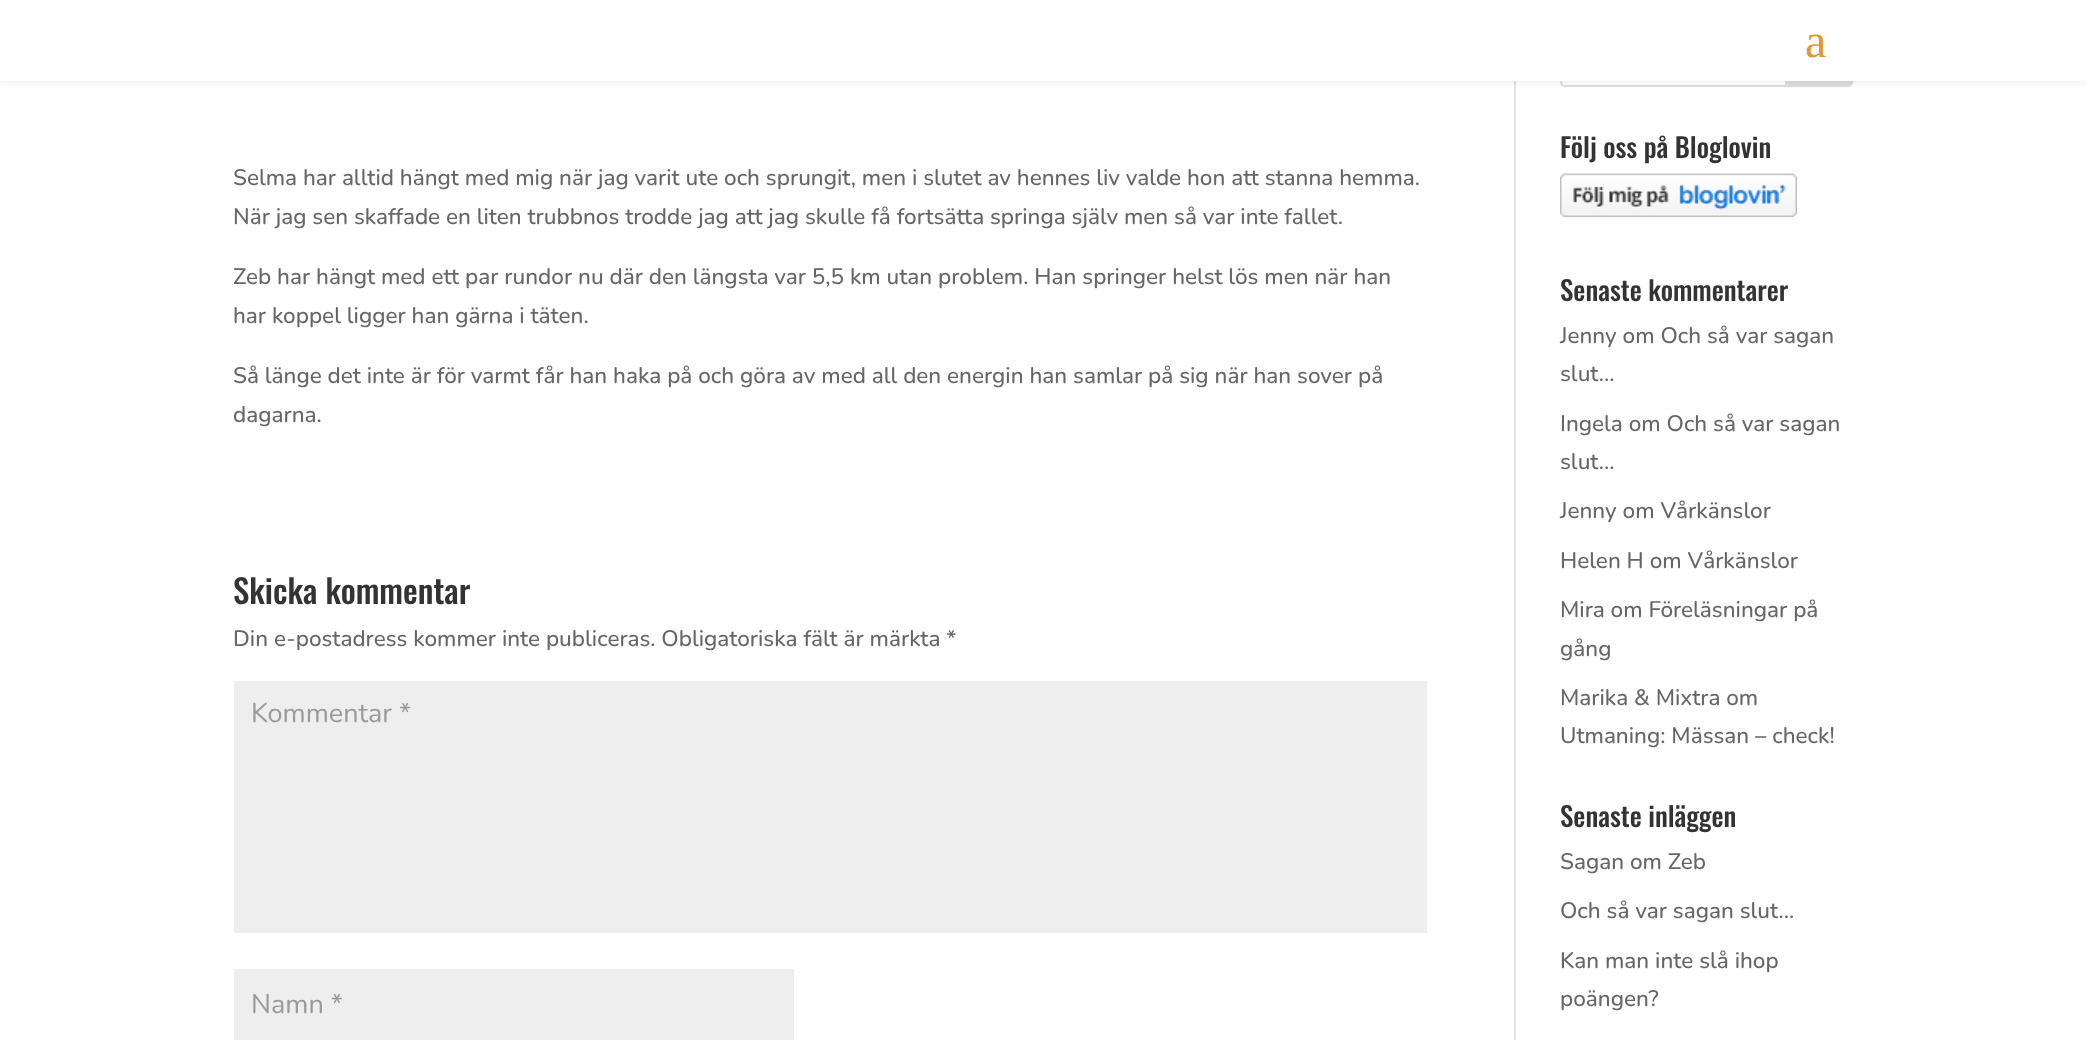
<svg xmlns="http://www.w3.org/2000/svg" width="2086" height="1040">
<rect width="100%" height="100%" fill="#fff"/>
<rect x="1514" y="81" width="2" height="959" fill="#e2e2e2"/>
<rect x="1561" y="28" width="291" height="58" rx="4" fill="none" stroke="#ddd" stroke-width="2"/>
<path d="M1786 28h62c2 0 4 2 4 4v50c0 2-2 4-4 4h-62z" fill="#ddd" stroke="#ddd" stroke-width="2"/>
<rect width="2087" height="81" fill="#0000001a" filter="blur(5px)"/>
<rect width="2086" height="81" fill="#fff"/>
<text x="1805" y="57" style="font-family:Liberation Serif;font-size:48px;fill:#d93">a</text>
<text x="233" y="185" style="font-family:Nunito;font-size:22.5px;font-weight:200;fill:#666">Selma har alltid hängt med mig när jag varit ute och sprungit, men i slutet av hennes liv valde hon att stanna hemma.</text>
<text x="233" y="224" style="font-family:Nunito;font-size:22.5px;font-weight:200;fill:#666">När jag sen skaffade en liten trubbnos trodde jag att jag skulle få fortsätta springa själv men så var inte fallet.</text>
<text x="233" y="284" style="font-family:Nunito;font-size:22.5px;font-weight:200;fill:#666">Zeb har hängt med ett par rundor nu där den längsta var 5,5 km utan problem. Han springer helst lös men när han</text>
<text x="233" y="323" style="font-family:Nunito;font-size:22.5px;font-weight:200;fill:#666">har koppel ligger han gärna i täten.</text>
<text x="233" y="383" style="font-family:Nunito;font-size:22.5px;font-weight:200;fill:#666">Så länge det inte är för varmt får han haka på och göra av med all den energin han samlar på sig när han sover på</text>
<text x="233" y="422" style="font-family:Nunito;font-size:22.5px;font-weight:200;fill:#666">dagarna.</text>
<text x="233" y="604" style="font-family:Oswald;font-size:33px;font-weight:500;fill:#333">Skicka kommentar</text>
<text x="233" y="646" style="font-family:Nunito;font-size:22.5px;font-weight:200;fill:#666">Din e-postadress kommer inte publiceras. Obligatoriska fält är märkta *</text>
<rect x="234" y="681" width="1193" height="252" fill="#eee"/>
<text x="251" y="722" style="font-family:'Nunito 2';font-size:27px;font-weight:200;fill:#999">Kommentar *</text>
<rect x="234" y="969" width="560" height="71" fill="#eee"/>
<text x="251" y="1013" style="font-family:'Nunito 2';font-size:27px;font-weight:200;fill:#999">Namn *</text>
<text x="1560" y="158" style="font-family:Oswald;font-size:27px;font-weight:500;fill:#333">Följ oss på Bloglovin</text>
<image x="1560" y="173" width="237" height="44" href="media/1.png"/>
<text x="1560" y="301" style="font-family:Oswald;font-size:27px;font-weight:500;fill:#333">Senaste kommentarer</text>
<text x="1560" y="343" style="font-family:Nunito;font-size:22.5px;font-weight:200;fill:#666">Jenny om Och så var sagan</text>
<text x="1560" y="381" style="font-family:Nunito;font-size:22.5px;font-weight:200;fill:#666">slut…</text>
<text x="1560" y="431" style="font-family:Nunito;font-size:22.5px;font-weight:200;fill:#666">Ingela om Och så var sagan</text>
<text x="1560" y="469" style="font-family:Nunito;font-size:22.5px;font-weight:200;fill:#666">slut…</text>
<text x="1560" y="518" style="font-family:Nunito;font-size:22.5px;font-weight:200;fill:#666">Jenny om Vårkänslor</text>
<text x="1560" y="568" style="font-family:Nunito;font-size:22.5px;font-weight:200;fill:#666">Helen H om Vårkänslor</text>
<text x="1560" y="617" style="font-family:Nunito;font-size:22.5px;font-weight:200;fill:#666">Mira om Föreläsningar på</text>
<text x="1560" y="656" style="font-family:Nunito;font-size:22.5px;font-weight:200;fill:#666">gång</text>
<text x="1560" y="705" style="font-family:Nunito;font-size:22.5px;font-weight:200;fill:#666">Marika &amp; Mixtra om</text>
<text x="1560" y="743" style="font-family:Nunito;font-size:22.5px;font-weight:200;fill:#666">Utmaning: Mässan – check!</text>
<text x="1560" y="827" style="font-family:Oswald;font-size:27px;font-weight:500;fill:#333">Senaste inläggen</text>
<text x="1560" y="869" style="font-family:Nunito;font-size:22.5px;font-weight:200;fill:#666">Sagan om Zeb</text>
<text x="1560" y="918" style="font-family:Nunito;font-size:22.5px;font-weight:200;fill:#666">Och så var sagan slut…</text>
<text x="1560" y="968" style="font-family:Nunito;font-size:22.5px;font-weight:200;fill:#666">Kan man inte slå ihop</text>
<text x="1560" y="1006" style="font-family:Nunito;font-size:22.5px;font-weight:200;fill:#666">poängen?</text>
</svg>
